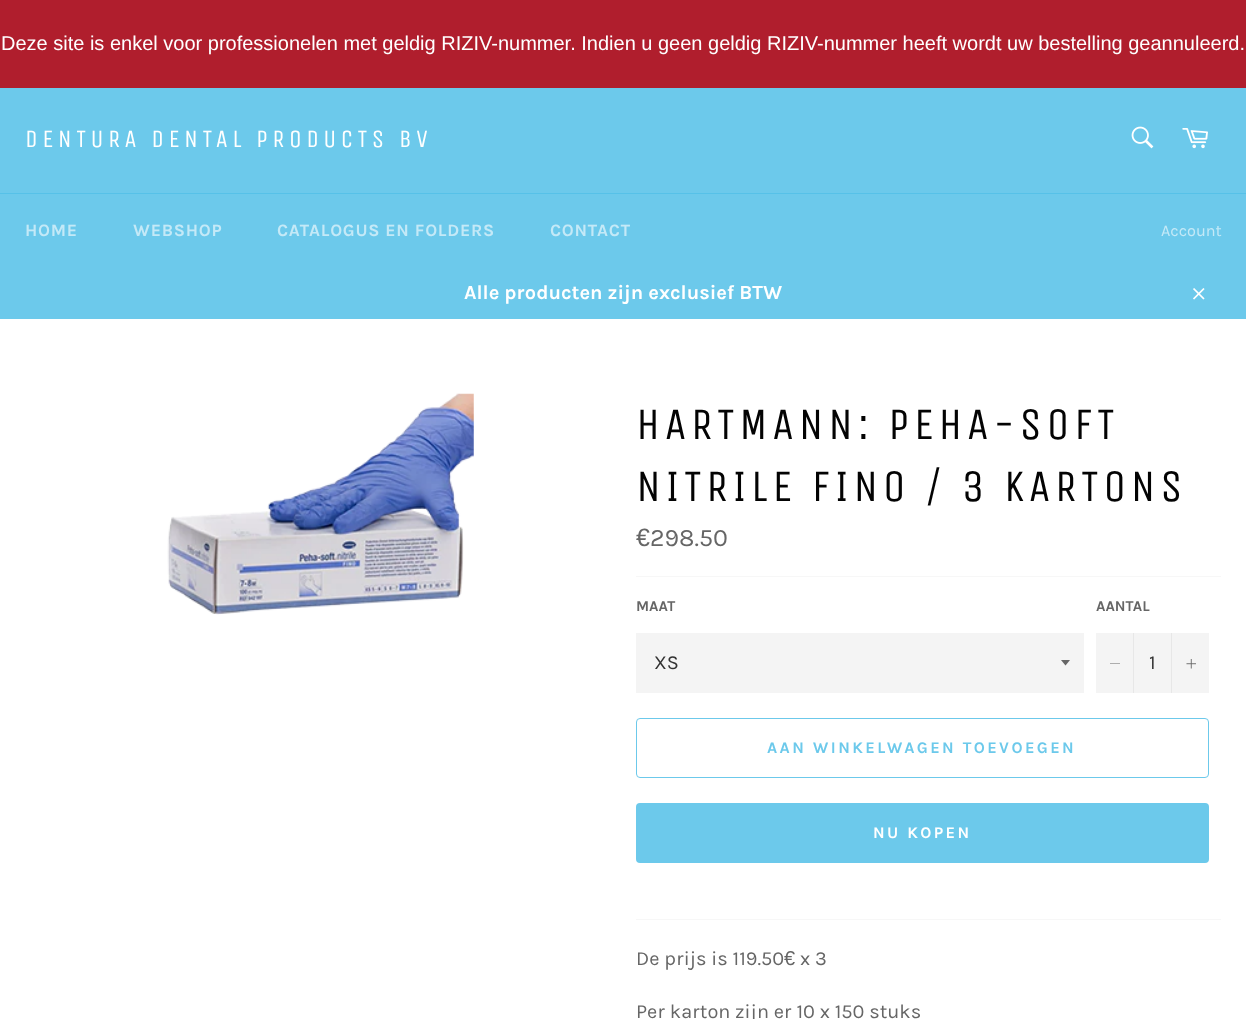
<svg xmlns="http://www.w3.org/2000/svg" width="1246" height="1019">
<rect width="100%" height="100%" fill="#6cc9eb"/>
<rect width="1246" height="88" fill="#b01e2d"/>
<text x="1" y="50" style="font-family:Liberation Sans;font-size:20px;fill:#fff">Deze site is enkel voor professionelen met geldig RIZIV-nummer. Indien u geen geldig RIZIV-nummer heeft wordt uw bestelling geannuleerd.</text>
<text x="25" y="147" style="font-family:Unica One;font-size:25px;letter-spacing:4.5px;fill:#fff">DENTURA DENTAL PRODUCTS BV</text>
<image x="1131" y="126" width="23" height="23" href="media/1.png"/>
<image x="1182" y="128" width="26" height="21" href="media/2.png"/>
<rect y="193" width="1246" height="1" fill="#56c1e8"/>
<text x="25" y="236" style="font-family:Karla;font-size:17.5px;font-weight:bold;letter-spacing:0.75px;fill:#c4e9f7">HOME</text>
<text x="133" y="236" style="font-family:Karla;font-size:17.5px;font-weight:bold;letter-spacing:0.75px;fill:#c4e9f7">WEBSHOP</text>
<text x="277" y="236" style="font-family:Karla;font-size:17.5px;font-weight:bold;letter-spacing:0.75px;fill:#c4e9f7">CATALOGUS EN FOLDERS</text>
<text x="550" y="236" style="font-family:Karla;font-size:17.5px;font-weight:bold;letter-spacing:0.75px;fill:#c4e9f7">CONTACT</text>
<text x="1161" y="236" style="font-family:Karla;font-size:16.25px;fill:#c4e9f7">Account</text>
<text x="464" y="299" style="font-family:Karla;font-size:20px;font-weight:bold;fill:#fff">Alle producten zijn exclusief BTW</text>
<image x="1193" y="288" width="12" height="12" href="media/3.png"/>
<rect y="319" width="1246" height="700" fill="#fff"/>
<image x="167" y="393" width="307" height="222" href="media/4.png"/>
<text x="636" y="439" style="font-family:Unica One;font-size:45px;letter-spacing:4.5px;fill:#030303">HARTMANN: PEHA-SOFT</text>
<text x="636" y="501" style="font-family:Unica One;font-size:45px;letter-spacing:4.5px;fill:#030303">NITRILE FINO / 3 KARTONS</text>
<text x="636" y="546" style="font-family:Liberation Sans;font-size:25px;fill:#666">€</text>
<text x="650" y="546" style="font-family:Karla;font-size:25px;fill:#666">298.50</text>
<rect x="636" y="576" width="585" height="1" fill="#f7f7f7"/>
<text x="636" y="611" style="font-family:Karla;font-size:15px;font-weight:bold;fill:#666">MAAT</text>
<rect x="636" y="633" width="448" height="60" fill="#f4f4f4"/>
<path d="M1061 660l4.5 5.5l4.5-5.5z" fill="#666"/>
<text x="654" y="669" style="font-family:Karla;font-size:20px;fill:#333">XS</text>
<text x="1096" y="611" style="font-family:Karla;font-size:15px;font-weight:bold;fill:#666">AANTAL</text>
<rect x="1096" y="633" width="113" height="60" fill="#f4f4f4"/>
<rect x="1133" y="633" width="1" height="60" fill="#e7e7e7"/>
<path d="M1120 663.5v.5h-10v-.5z" fill="#666" fill-rule="evenodd"/>
<text x="1149" y="669" style="font-family:Karla;font-size:20px;fill:#333">1</text>
<rect x="1171" y="633" width="1" height="60" fill="#e7e7e7"/>
<image x="1186" y="659" width="10" height="10" href="media/5.png"/>
<rect x="636.5" y="718.5" width="572" height="59" rx="3.5" fill="none" stroke="#6cc9eb"/>
<text x="767" y="753" style="font-family:Karla;font-size:16.25px;font-weight:bold;letter-spacing:2.4px;fill:#6cc9eb">AAN WINKELWAGEN TOEVOEGEN</text>
<rect x="636" y="803" width="573" height="60" rx="4" fill="#6cc9eb"/>
<text x="873" y="838" style="font-family:Karla;font-size:16.25px;font-weight:bold;letter-spacing:2.4px;fill:#fff">NU KOPEN</text>
<rect x="636" y="919" width="585" height="1" fill="#f7f7f7"/>
<text x="636" y="965" style="font-family:Karla;font-size:20px;fill:#666">De prijs is 119.50</text>
<text x="784" y="965" style="font-family:Liberation Sans;font-size:20px;fill:#666">€</text>
<text x="800" y="965" style="font-family:Karla;font-size:20px;fill:#666">x 3</text>
<text x="636" y="1018" style="font-family:Karla;font-size:20px;fill:#666">Per karton zijn er 10 x 150 stuks</text>
</svg>
